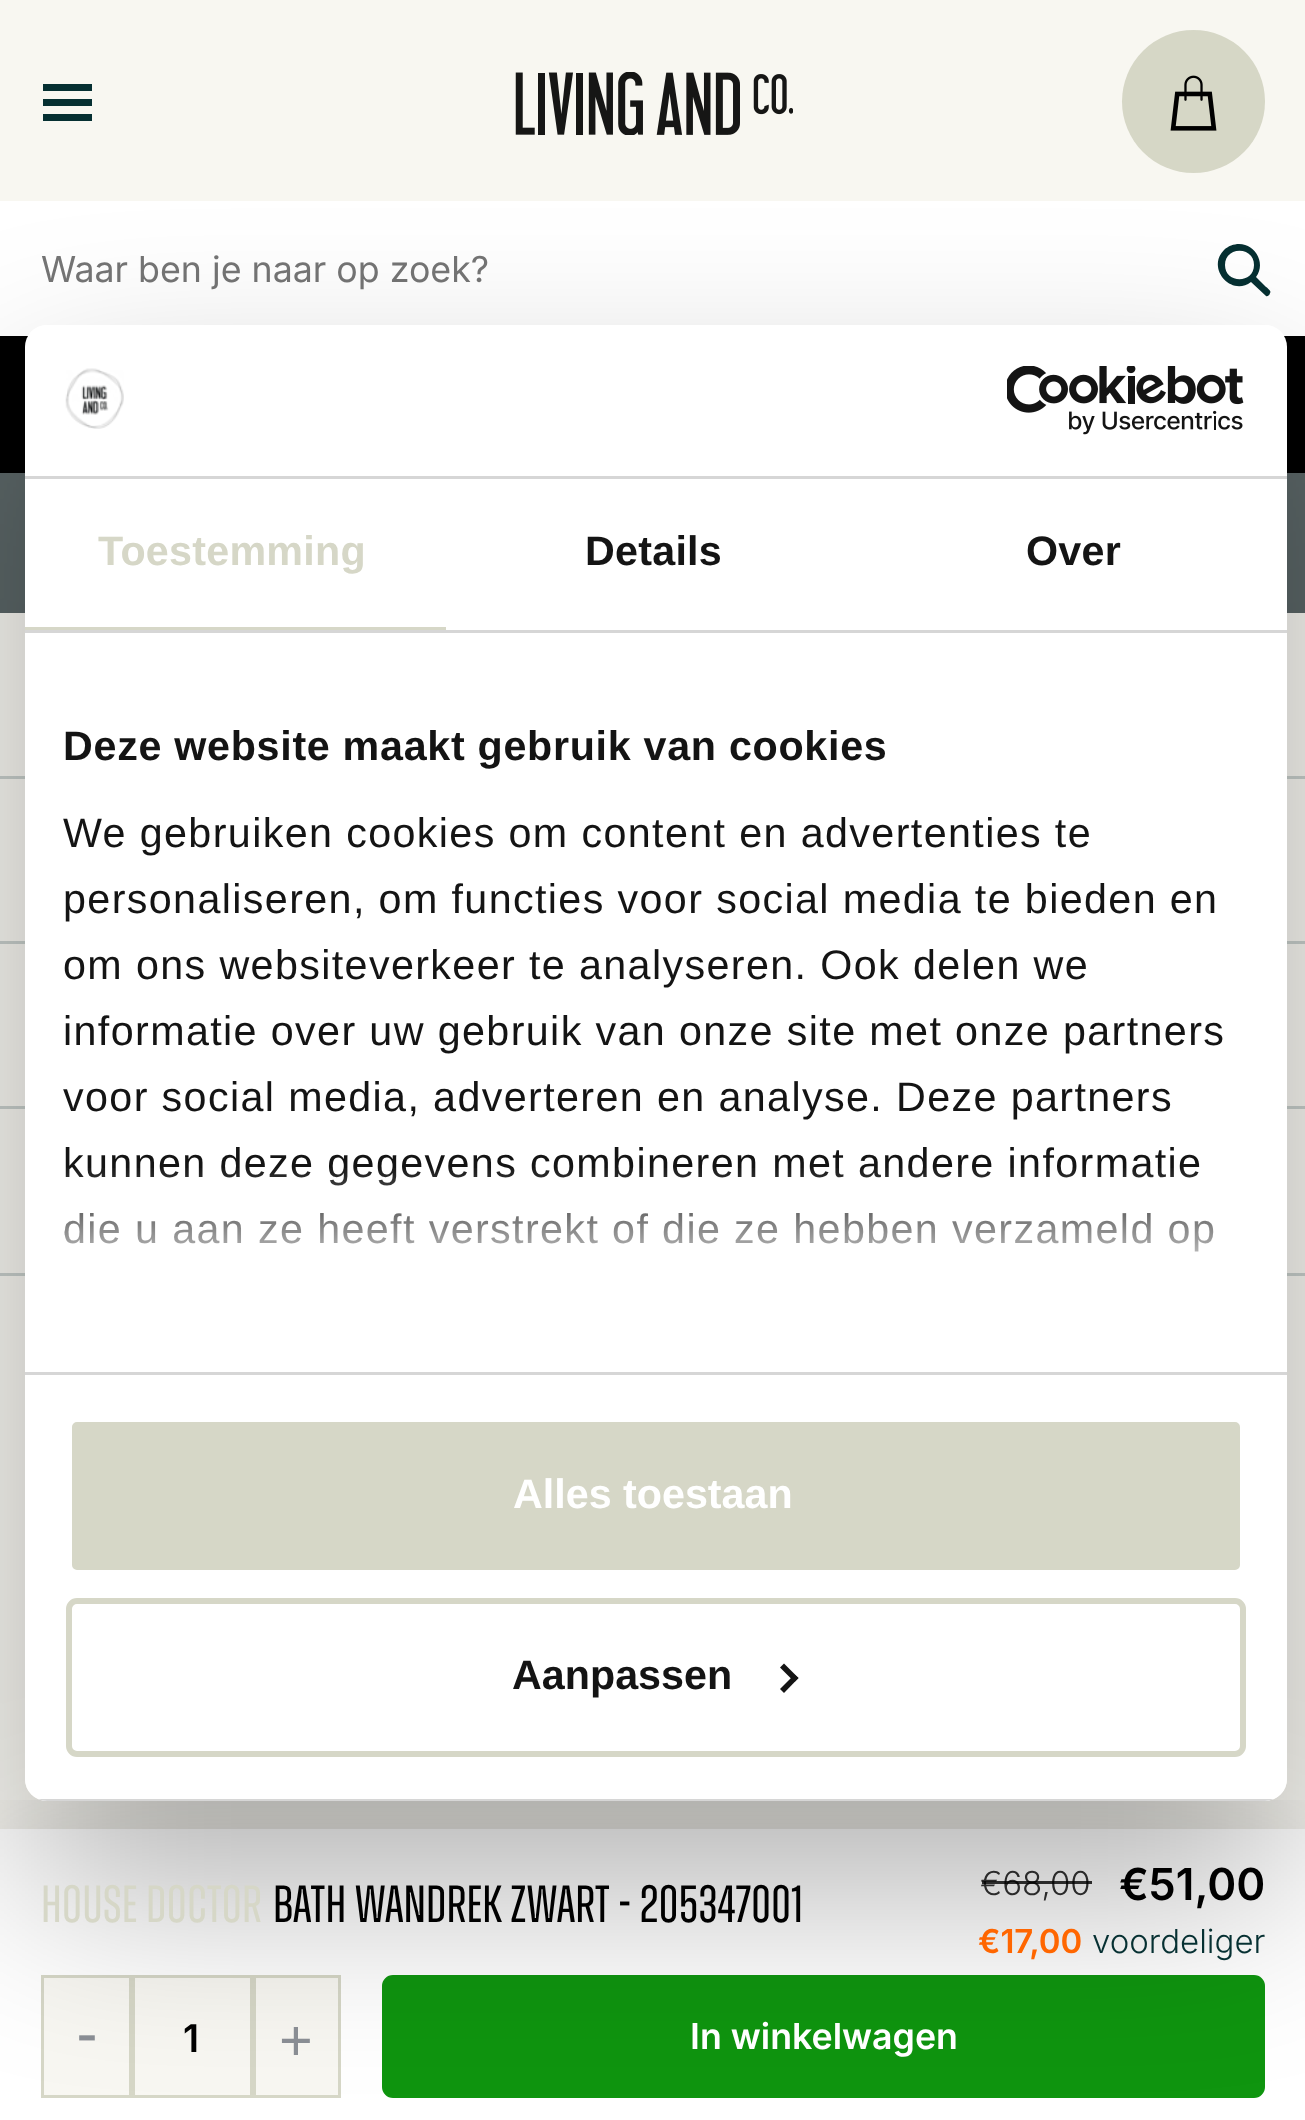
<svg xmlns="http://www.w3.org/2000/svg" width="1305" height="2120">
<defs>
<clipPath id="clip1"><rect x="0" y="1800" width="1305" height="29"/></clipPath>
<clipPath id="clip2"><path d="M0 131h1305v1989h-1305zm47 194h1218c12 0 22 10 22 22v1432c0 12-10 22-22 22h-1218c-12 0-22-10-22-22v-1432c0-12 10-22 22-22z" clip-rule="evenodd"/></clipPath>
<linearGradient id="g1" gradientUnits="userSpaceOnUse" x1="637" y1="1371" x2="637" y2="1165"><stop offset="0" stop-color="#fff"/><stop offset="0.5" stop-color="#fff" stop-opacity="0.8"/><stop offset="1" stop-color="#fff" stop-opacity="0"/></linearGradient>
<clipPath id="clip3"><rect x="25" y="325" width="1262" height="1476" rx="22"/></clipPath>
</defs>
<rect width="100%" height="100%" fill="#fff"/>
<rect width="1305" height="201" fill="#f8f7f1"/>
<path d="M43 84h49v7h-49zm0 15h49v7h-49zm0 15h49v7h-49z" fill="#063032"/>
<image x="515" y="72" width="278" height="63" href="media/1.png"/>
<circle cx="1193.5" cy="101.5" r="71.5" fill="#d6d7c6"/>
<image x="1170" y="75" width="47" height="56" href="media/2.png"/>
<rect y="336" width="1305" height="137" fill="#000"/>
<text x="41" y="282" style="font-family:Inter;font-size:35.75px;fill:#757575">Waar ben je naar op zoek?</text>
<path d="M1239 244c-5 0-11 2-15 6c-18 18 7 47 27 32l15 14c1 1 4-1 4-3c2-2-3-5-5-7l-9-9c10-13 0-33-17-33zm-14 21c0-19 29-19 29 0c0 19-29 19-29 0z" fill="#063032"/>
<rect y="473" width="1305" height="140" fill="#5b6667"/>
<rect y="613" width="1305" height="1216" fill="#f8f7f2"/>
<rect y="776" width="1305" height="3" fill="#c8cfcc"/>
<rect y="941" width="1305" height="3" fill="#c8cfcc"/>
<rect y="1106" width="1305" height="3" fill="#c8cfcc"/>
<rect y="1273" width="1305" height="3" fill="#c8cfcc"/>
<g clip-path="url(#clip1)">
<rect y="1829" width="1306" height="291" fill="#0000001a" filter="blur(41px)"/>
</g>
<text x="980" y="1895" style="font-family:Inter;font-size:33px;font-weight:300;fill:#333">€68,00</text>
<rect x="982" y="1881" width="110" height="3" fill="#000000cc"/>
<rect x="44" y="1978" width="294" height="117" fill="#f8f7f2"/>
<rect x="42.5" y="1976.5" width="88" height="120" fill="none" stroke="#d6d7c7" stroke-width="3"/>
<rect x="133.5" y="1976.5" width="121" height="120" fill="none" stroke="#d6d7c7" stroke-width="3"/>
<rect x="251.5" y="1976.5" width="88" height="120" fill="none" stroke="#d6d7c7" stroke-width="3"/>
<rect x="383.5" y="1976.5" width="880" height="120" rx="9.5" fill="#0f950f" stroke="#0f950f" stroke-width="3"/>
<g clip-path="url(#clip2)">
<rect x="25" y="413" width="1262" height="1476" rx="22" fill="#0000004d" filter="blur(93.5px)"/>
</g>
<rect x="25" y="325" width="1262" height="1476" rx="22" fill="#fff"/>
<rect x="25" y="476" width="1262" height="3" fill="#d6d6d6"/>
<image x="65" y="368" width="59" height="61" href="media/3.png"/>
<image x="1007" y="366" width="237" height="69" href="media/4.png"/>
<rect x="25" y="630" width="1262" height="3" fill="#d6d6d6"/>
<rect x="25" y="627" width="421" height="3" fill="#d6d7c7"/>
<text x="98" y="565" style="font-family:Liberation Sans;font-size:41.25px;font-weight:bold;letter-spacing:0.25px;fill:#d6d7c7">Toestemming</text>
<text x="585" y="565" style="font-family:Liberation Sans;font-size:41.25px;font-weight:bold;letter-spacing:0.25px;fill:#141414">Details</text>
<text x="1026" y="565" style="font-family:Liberation Sans;font-size:41.25px;font-weight:bold;letter-spacing:0.25px;fill:#141414">Over</text>
<rect x="25" y="1372" width="1262" height="3" fill="#d6d6d6"/>
<text x="63" y="760" style="font-family:Liberation Sans;font-size:41.25px;font-weight:bold;letter-spacing:0.7px;fill:#141414">Deze website maakt gebruik van cookies</text>
<text x="63" y="847" style="font-family:Liberation Sans;font-size:41.25px;letter-spacing:1.38px;fill:#141414">We gebruiken cookies om content en advertenties te</text>
<text x="63" y="913" style="font-family:Liberation Sans;font-size:41.25px;letter-spacing:1.38px;fill:#141414">personaliseren, om functies voor social media te bieden en</text>
<text x="63" y="979" style="font-family:Liberation Sans;font-size:41.25px;letter-spacing:1.38px;fill:#141414">om ons websiteverkeer te analyseren. Ook delen we</text>
<text x="63" y="1045" style="font-family:Liberation Sans;font-size:41.25px;letter-spacing:1.38px;fill:#141414">informatie over uw gebruik van onze site met onze partners</text>
<text x="63" y="1111" style="font-family:Liberation Sans;font-size:41.25px;letter-spacing:1.38px;fill:#141414">voor social media, adverteren en analyse. Deze partners</text>
<text x="63" y="1177" style="font-family:Liberation Sans;font-size:41.25px;letter-spacing:1.38px;fill:#141414">kunnen deze gegevens combineren met andere informatie</text>
<text x="63" y="1243" style="font-family:Liberation Sans;font-size:41.25px;letter-spacing:1.38px;fill:#141414">die u aan ze heeft verstrekt of die ze hebben verzameld op</text>
<rect x="65" y="1168" width="1149" height="84" fill="url(#g1)"/>
<g clip-path="url(#clip3)">
<rect x="38" y="1799" width="1236" height="2" fill="#d6d6d6"/>
</g>
<rect x="69" y="1419" width="1174" height="154" rx="8" fill="#d6d7c7" stroke="#fff" stroke-width="6"/>
<text x="513" y="1508" style="font-family:Liberation Sans;font-size:41.25px;font-weight:bold;fill:#fff">Alles toestaan</text>
<rect x="69" y="1601" width="1174" height="153" rx="8" fill="none" stroke="#d6d7c7" stroke-width="6"/>
<text x="512" y="1689" style="font-family:Liberation Sans;font-size:41.25px;font-weight:bold;fill:#141414">Aanpassen</text>
<path d="M784 1663.5l14.5 14.5l-4 4l-14.5-14.5z" fill="#141414"/>
<path d="M794.5 1674.5l4 3.5l-14.5 15l-4-4z" fill="#141414"/>
<text x="41" y="1922" style="font-family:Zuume;font-size:52.25px;fill:#d6d7c7">House Doctor</text>
<text x="273" y="1922" style="font-family:Zuume;font-size:52.25px;fill:#000">Bath wandrek zwart - 205347001</text>
<text x="1119" y="1900" style="font-family:Inter;font-size:44px;font-weight:600;fill:#000">€51,00</text>
<text x="978" y="1953" style="font-family:Inter;font-size:33px;font-weight:600;fill:#f60">€17,00</text>
<text x="1092" y="1953" style="font-family:Inter;font-size:33px;font-weight:300;fill:#063032">voordeliger</text>
<text x="77" y="2052" style="font-family:Liberation Serif;font-size:60px;font-weight:bold;fill:#898d93">-</text>
<text x="183" y="2052" style="font-family:Inter;font-size:38px;font-weight:600;fill:#000">1</text>
<text x="313" y="2021" transform="rotate(180 313 2021)" style="font-family:Liberation Serif;font-size:60px;font-weight:bold;fill:#898d93">+</text>
<text x="690" y="2049" style="font-family:Inter;font-size:35.75px;font-weight:600;fill:#fff">In winkelwagen</text>
</svg>
